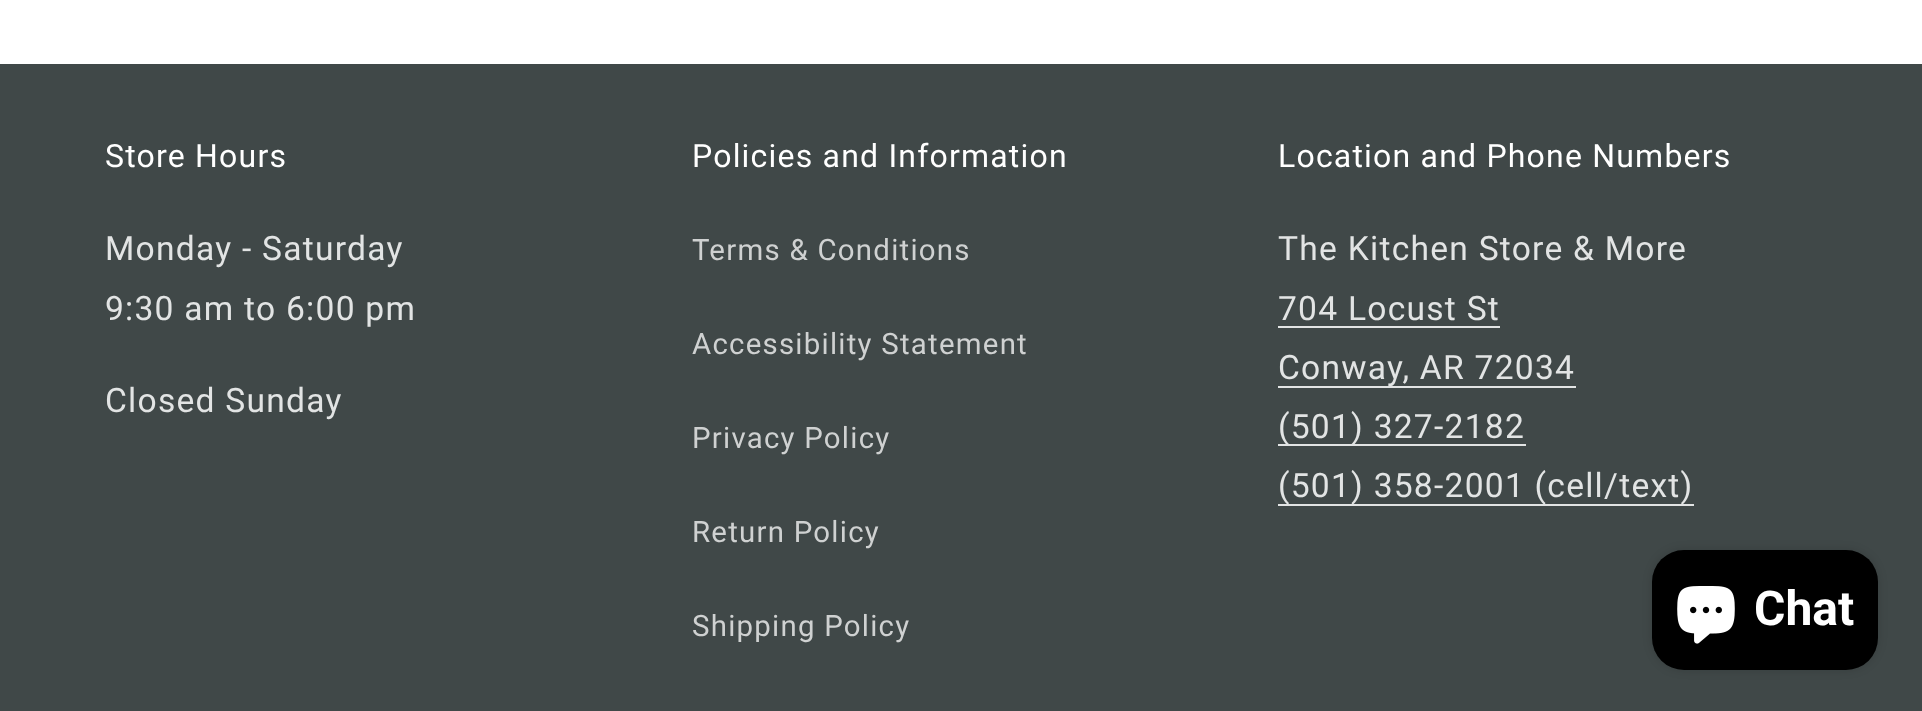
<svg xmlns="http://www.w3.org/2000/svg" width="1922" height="711">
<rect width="100%" height="100%" fill="#fff"/>
<rect y="64" width="1922" height="647" fill="#404848"/>
<text x="105" y="167" style="font-family:Roboto;font-size:32px;letter-spacing:1.2px;fill:#fff">Store Hours</text>
<text x="105" y="260" style="font-family:Roboto;font-size:33.6px;letter-spacing:1.25px;fill:#e2e4e4">Monday - Saturday</text>
<text x="105" y="320" style="font-family:Roboto;font-size:33.6px;letter-spacing:1.25px;fill:#e2e4e4">9:30 am to 6:00 pm</text>
<text x="105" y="412" style="font-family:Roboto;font-size:33.6px;letter-spacing:1.25px;fill:#e2e4e4">Closed Sunday</text>
<text x="692" y="167" style="font-family:Roboto;font-size:32px;letter-spacing:1.2px;fill:#fff">Policies and Information</text>
<text x="692" y="260" style="font-family:Roboto;font-size:29.4px;letter-spacing:1.25px;fill:#cfd1d1">Terms &amp; Conditions</text>
<text x="692" y="354" style="font-family:Roboto;font-size:29.4px;letter-spacing:1.25px;fill:#cfd1d1">Accessibility Statement</text>
<text x="692" y="448" style="font-family:Roboto;font-size:29.4px;letter-spacing:1.25px;fill:#cfd1d1">Privacy Policy</text>
<text x="692" y="542" style="font-family:Roboto;font-size:29.4px;letter-spacing:1.25px;fill:#cfd1d1">Return Policy</text>
<text x="692" y="636" style="font-family:Roboto;font-size:29.4px;letter-spacing:1.25px;fill:#cfd1d1">Shipping Policy</text>
<text x="1278" y="167" style="font-family:Roboto;font-size:32px;letter-spacing:1.2px;fill:#fff">Location and Phone Numbers</text>
<text x="1278" y="260" style="font-family:Roboto;font-size:33.6px;letter-spacing:1.25px;fill:#e2e4e4">The Kitchen Store &amp; More</text>
<text x="1278" y="320" style="font-family:Roboto;font-size:33.6px;letter-spacing:1.25px;fill:#e2e4e4">704 Locust St</text>
<rect x="1278" y="326" width="222" height="2" fill="#e2e4e4"/>
<rect x="1278" y="386" width="298" height="2" fill="#e2e4e4"/>
<text x="1278" y="379" style="font-family:Roboto;font-size:33.6px;letter-spacing:1.25px;fill:#e2e4e4">Conway, AR 72034</text>
<rect x="1278" y="444" width="248" height="2" fill="#e2e4e4"/>
<text x="1278" y="438" style="font-family:Roboto;font-size:33.6px;letter-spacing:1.25px;fill:#e2e4e4">(501) 327-2182</text>
<rect x="1278" y="504" width="416" height="2" fill="#e2e4e4"/>
<text x="1278" y="497" style="font-family:Roboto;font-size:33.6px;letter-spacing:1.25px;fill:#e2e4e4">(501) 358-2001 (cell/text)</text>
<rect x="1652" y="550" width="226" height="120" rx="32" fill="#00000026" filter="blur(5px)"/>
<rect x="1652" y="550" width="226" height="120" rx="32" fill="#000"/>
<image x="1677" y="586" width="58" height="58" href="media/1.png"/>
<text x="1754" y="625" style="font-family:Roboto;font-size:48px;font-weight:bold;fill:#fff">Chat</text>
</svg>
